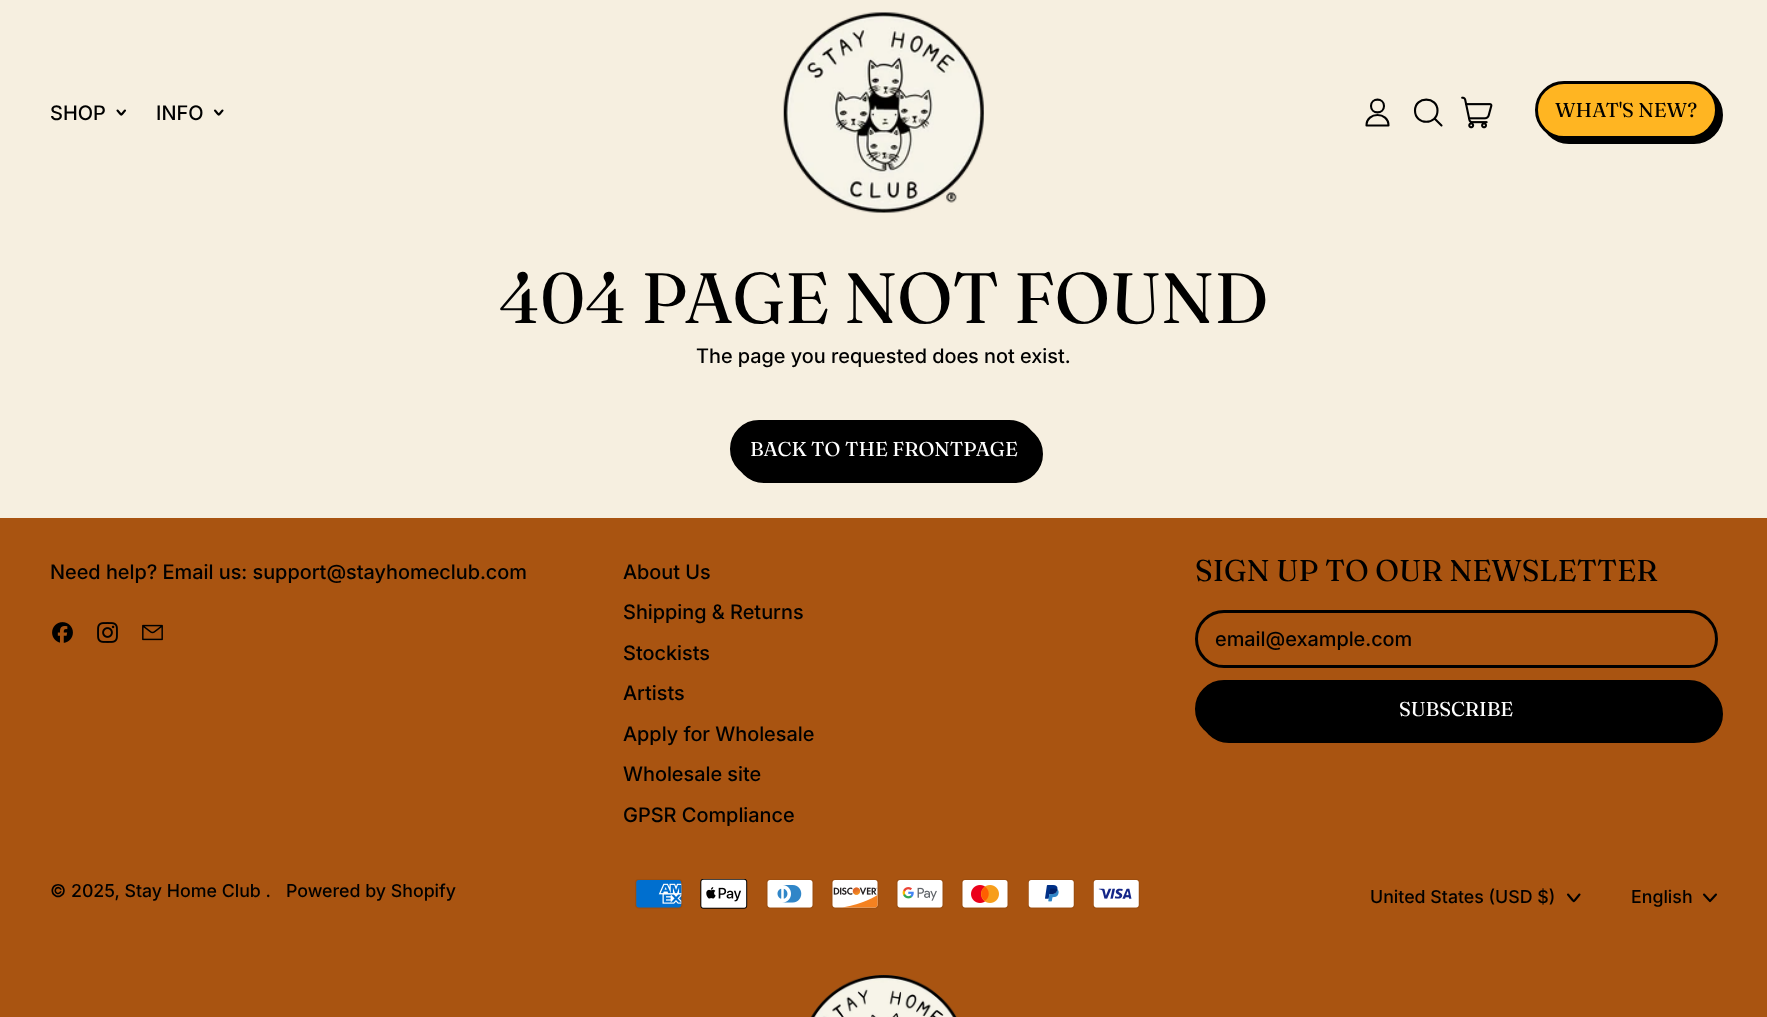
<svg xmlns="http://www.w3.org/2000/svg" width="1767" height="1017">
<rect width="100%" height="100%" fill="#f6efe0"/>
<text x="50" y="120" style="font-family:Inter;font-size:20px;font-weight:500;fill:#000">SHOP</text>
<path d="M117.5 110.5c5 5.5 2.5 5.5 7.5 0" fill="none" stroke="#000" stroke-width="2.1" stroke-linecap="round" stroke-linejoin="round"/>
<text x="156" y="120" style="font-family:Inter;font-size:20px;font-weight:500;fill:#000">INFO</text>
<path d="M215 110.5c5 5.5 2.5 5.5 7.5 0" fill="none" stroke="#000" stroke-width="2.1" stroke-linecap="round" stroke-linejoin="round"/>
<image x="783" y="12" width="201" height="201" href="media/1.png"/>
<path d="M1371 106c0 8.5 13 8.5 13 0c0-8.5-13-8.5-13 0zm-4.5 19.5c0-14 22-14 22 0z" fill="none" stroke="#000" stroke-width="2.1" stroke-linecap="round" stroke-linejoin="round"/>
<path d="M1415 110.5c0 15 22.5 15 22.5 0c0-14.5-22.5-14.5-22.5 0zm26.5 15l-6.5-6.5" fill="none" stroke="#000" stroke-width="2.1" stroke-linecap="round" stroke-linejoin="round"/>
<image x="1461" y="96" width="32" height="33" href="media/2.png"/>
<rect x="1541.5" y="87.5" width="180" height="55" rx="27.5" fill="#000" stroke="#000" stroke-width="3"/>
<rect x="1536.5" y="82.5" width="180" height="55" rx="27.5" fill="#ffb522" stroke="#000" stroke-width="3"/>
<text x="1555" y="117" style="font-family:'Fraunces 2';font-size:20px;fill:#000">WHAT'S NEW?</text>
<text x="499" y="323" style="font-family:Fraunces;font-size:71.25px;fill:#000">404 PAGE NOT FOUND</text>
<text x="696" y="363" style="font-family:Inter;font-size:20px;font-weight:500;fill:#000">The page you requested does not exist.</text>
<rect x="736.5" y="426.5" width="305" height="55" rx="27.5" fill="#000" stroke="#000" stroke-width="3"/>
<rect x="731.5" y="421.5" width="305" height="55" rx="27.5" fill="#000" stroke="#000" stroke-width="3"/>
<text x="750" y="456" style="font-family:'Fraunces 2';font-size:20px;fill:#fff">BACK TO THE FRONTPAGE</text>
<rect y="518" width="1767" height="499" fill="#a95411"/>
<image x="810" y="975" width="147" height="42" href="media/3.png"/>
<text x="50" y="579" style="font-family:Inter;font-size:20px;font-weight:500;fill:#000">Need help? Email us: support@stayhomeclub.com</text>
<image x="52" y="622" width="21" height="21" href="media/4.png"/>
<image x="97" y="622" width="21" height="21" href="media/5.png"/>
<image x="142" y="624" width="21" height="17" href="media/6.png"/>
<text x="623" y="579" style="font-family:Inter;font-size:20px;font-weight:500;fill:#000">About Us</text>
<text x="623" y="619" style="font-family:Inter;font-size:20px;font-weight:500;fill:#000">Shipping &amp; Returns</text>
<text x="623" y="660" style="font-family:Inter;font-size:20px;font-weight:500;fill:#000">Stockists</text>
<text x="623" y="700" style="font-family:Inter;font-size:20px;font-weight:500;fill:#000">Artists</text>
<text x="623" y="741" style="font-family:Inter;font-size:20px;font-weight:500;fill:#000">Apply for Wholesale</text>
<text x="623" y="781" style="font-family:Inter;font-size:20px;font-weight:500;fill:#000">Wholesale site</text>
<text x="623" y="822" style="font-family:Inter;font-size:20px;font-weight:500;fill:#000">GPSR Compliance</text>
<text x="1195" y="581" style="font-family:'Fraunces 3';font-size:30px;fill:#000">SIGN UP TO OUR NEWSLETTER</text>
<rect x="1196.5" y="611.5" width="520" height="55" rx="27.5" fill="none" stroke="#000" stroke-width="3"/>
<text x="1215" y="646" style="font-family:Inter;font-size:20px;font-weight:500;fill:#000">email@example.com</text>
<rect x="1201.5" y="686.5" width="520" height="55" rx="27.5" fill="#000" stroke="#000" stroke-width="3"/>
<rect x="1196.5" y="681.5" width="520" height="55" rx="27.5" fill="#000" stroke="#000" stroke-width="3"/>
<text x="1399" y="716" style="font-family:'Fraunces 2';font-size:20px;fill:#fff">SUBSCRIBE</text>
<text x="50" y="897" style="font-family:'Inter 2';font-size:17.75px;font-weight:500;fill:#000">© 2025, Stay Home Club .</text>
<text x="286" y="897" style="font-family:'Inter 2';font-size:17.75px;font-weight:500;fill:#000">Powered by Shopify</text>
<image x="635" y="879" width="48" height="30" href="media/7.png"/>
<image x="700" y="879" width="48" height="30" href="media/8.png"/>
<image x="766" y="879" width="48" height="30" href="media/9.png"/>
<image x="831" y="879" width="48" height="30" href="media/10.png"/>
<image x="896" y="879" width="48" height="30" href="media/11.png"/>
<image x="961" y="879" width="48" height="30" href="media/12.png"/>
<image x="1028" y="879" width="47" height="30" href="media/13.png"/>
<image x="1093" y="879" width="47" height="30" href="media/14.png"/>
<text x="1370" y="903" style="font-family:'Inter 2';font-size:17.75px;font-weight:500;fill:#000">United States (USD $)</text>
<path d="M1568 894.5l4.5 5.5c1.5 1.5 1 1.5 2.5 0l4.5-5.5" fill="none" stroke="#000" stroke-width="2.1" stroke-linecap="round" stroke-linejoin="round"/>
<text x="1631" y="903" style="font-family:'Inter 2';font-size:17.75px;font-weight:500;fill:#000">English</text>
<path d="M1704 894.5l5 5.5c1 1.5 1 1.5 2 0l5-5.5" fill="none" stroke="#000" stroke-width="2.1" stroke-linecap="round" stroke-linejoin="round"/>
</svg>
